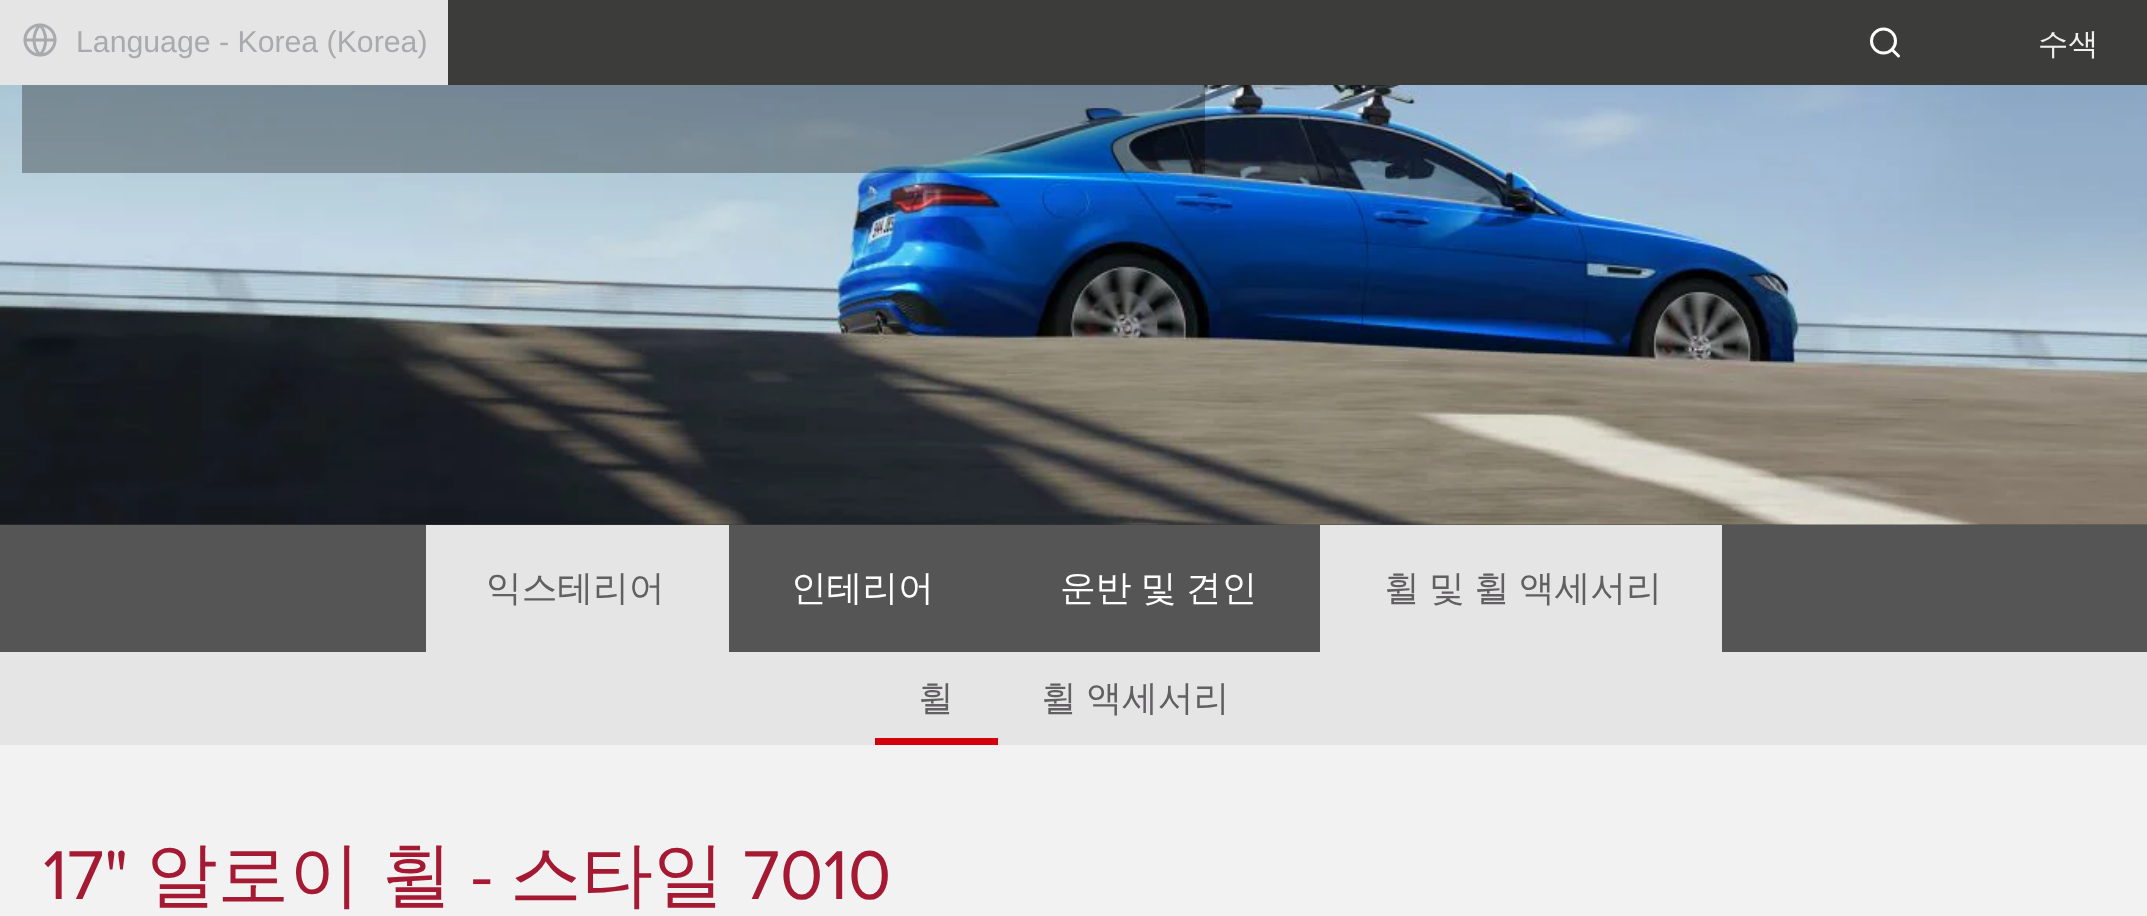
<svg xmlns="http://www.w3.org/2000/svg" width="2147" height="916">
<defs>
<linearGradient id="g1" gradientUnits="userSpaceOnUse" x1="936" y1="652" x2="936" y2="745"><stop offset="0" stop-color="#e5e5e5"/><stop offset="0.92" stop-color="#e5e5e5"/><stop offset="0.92" stop-color="#d2000a"/><stop offset="1" stop-color="#d2000a"/></linearGradient>
</defs>
<rect width="100%" height="100%" fill="#f2f2f2"/>
<rect x="448" width="1699" height="85" fill="#3c3c3b"/>
<rect width="448" height="85" fill="#e5e5e5"/>
<circle cx="40" cy="40" r="15" fill="none" stroke="#a8aaae" stroke-width="3"/>
<path d="M25 40h30m-15-15c7.5 8.5 7.5 21.5 0 30c-8-8.5-8-21.5 0-30z" fill="none" stroke="#a8aaae" stroke-width="3" stroke-linecap="round" stroke-linejoin="round"/>
<text x="76" y="52" style="font-family:Liberation Sans;font-size:30.25px;fill:#a8aaae">Language - Korea (Korea)</text>
<circle cx="1883.5" cy="41" r="12" fill="none" stroke="#fff" stroke-width="3"/>
<path d="M1898.5 56l-6.5-6.5" fill="none" stroke="#fff" stroke-width="3" stroke-linecap="round" stroke-linejoin="round"/>
<text x="2038" y="54" style="font-family:WenQuanYi Zen Hei;font-size:30.25px;font-weight:500;fill:#f0f0f0">수색</text>
<rect y="524" width="2147" height="1" fill="#3c3c3b"/>
<image x="0" y="85" width="2147" height="440" href="media/1.png"/>
<rect x="22" y="85" width="1183" height="88" fill="#0000004d"/>
<rect y="525" width="2147" height="127" fill="#555"/>
<rect x="426" y="525" width="303" height="127" fill="#e5e5e5"/>
<text x="486" y="600" style="font-family:WenQuanYi Zen Hei;font-size:35.75px;font-weight:500;fill:#615f61">익스테리어</text>
<text x="791" y="600" style="font-family:WenQuanYi Zen Hei;font-size:35.75px;font-weight:500;fill:#fff">인테리어</text>
<text x="1060" y="600" word-spacing="-1.5" style="font-family:WenQuanYi Zen Hei;font-size:35.75px;font-weight:500;fill:#fff">운반 및 견인</text>
<rect x="1320" y="525" width="402" height="127" fill="#e5e5e5"/>
<text x="1384" y="600" word-spacing="-1.5" style="font-family:WenQuanYi Zen Hei;font-size:35.75px;font-weight:500;fill:#615f61">휠 및 휠 액세서리</text>
<rect y="652" width="2147" height="93" fill="#e5e5e5"/>
<rect x="875" y="738" width="123" height="7" fill="url(#g1)"/>
<text x="918" y="710" style="font-family:WenQuanYi Zen Hei;font-size:35.75px;font-weight:500;fill:#615f61">휠</text>
<text x="1041" y="710" word-spacing="-1" style="font-family:WenQuanYi Zen Hei;font-size:35.75px;font-weight:500;fill:#615f61">휠 액세서리</text>
<text x="43" y="899" style="font-family:Proxima Nova;font-size:71.5px;fill:#a51933">17"</text>
<text x="146" y="899" word-spacing="-1" style="font-family:WenQuanYi Zen Hei;font-size:71.5px;font-weight:500;fill:#a51933">알로이 휠</text>
<text x="471" y="899" style="font-family:Proxima Nova;font-size:71.5px;fill:#a51933">-</text>
<text x="510" y="899" style="font-family:WenQuanYi Zen Hei;font-size:71.5px;font-weight:500;fill:#a51933">스타일</text>
<text x="743" y="899" style="font-family:Proxima Nova;font-size:71.5px;fill:#a51933">7010</text>
</svg>
